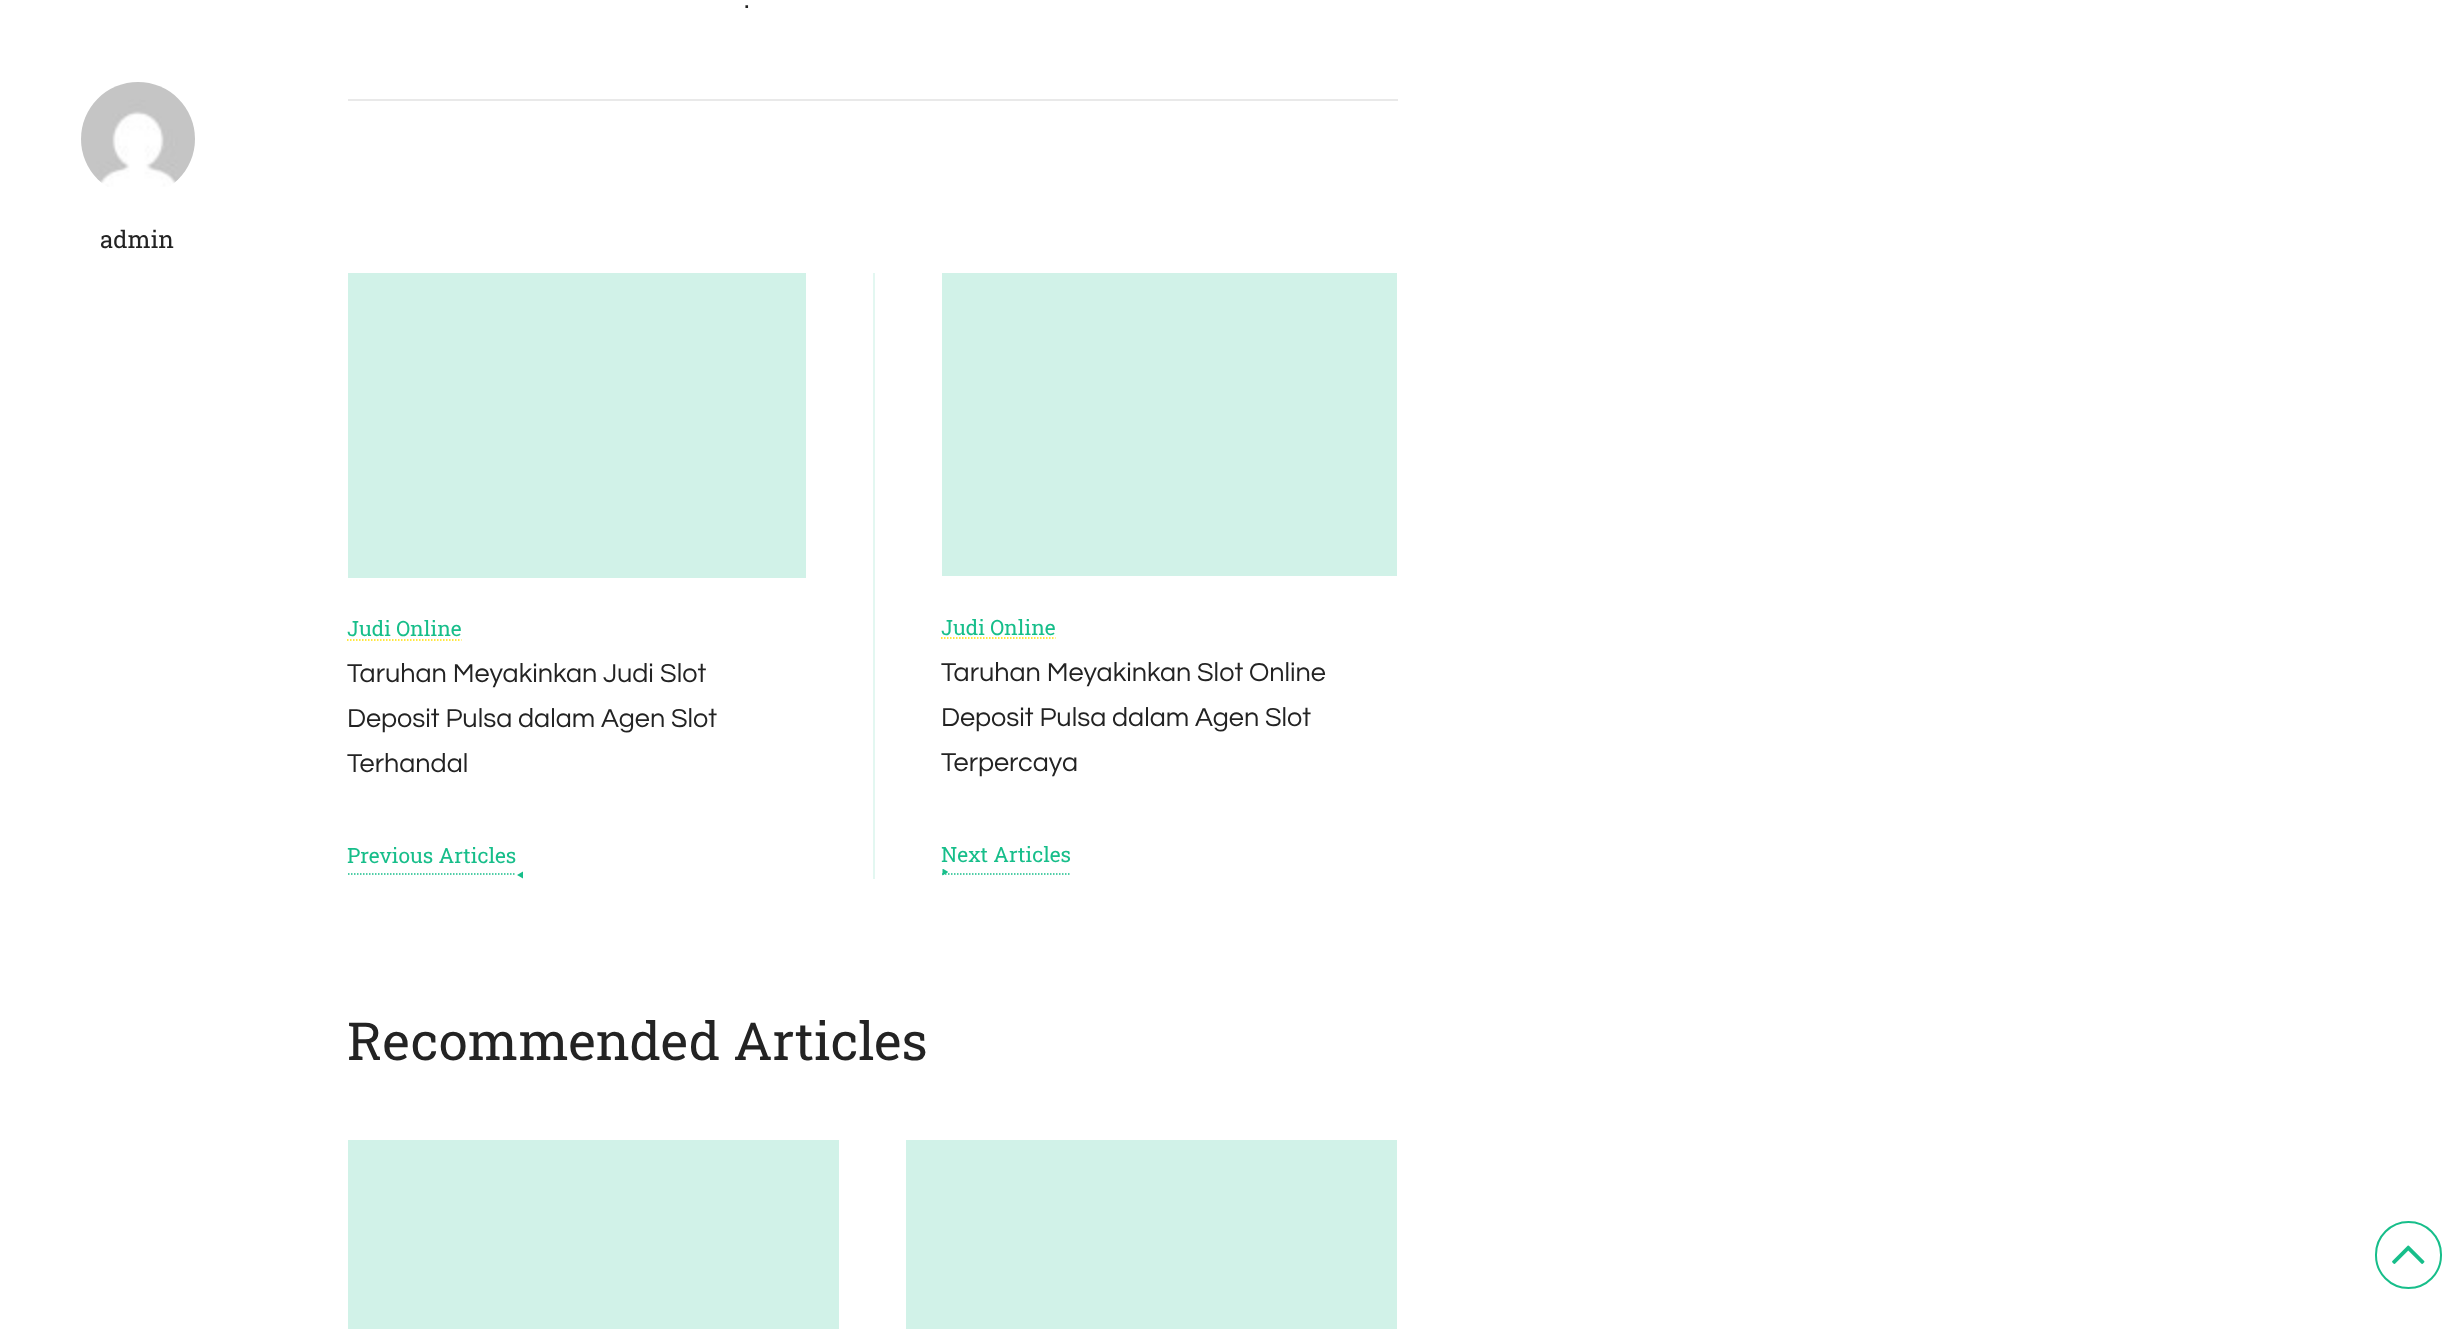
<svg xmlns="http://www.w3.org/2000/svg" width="2449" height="1329">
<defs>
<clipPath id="clip1"><rect x="942" y="869" width="6" height="7"/></clipPath>
</defs>
<rect width="100%" height="100%" fill="#fff"/>
<text x="744" y="8" style="font-family:Questrial;font-size:27px;fill:#232323">.</text>
<rect x="348" y="99" width="1050" height="2" fill="#e9e9e9"/>
<image x="81" y="82" width="114" height="105" href="media/1.png"/>
<text x="100" y="248" style="font-family:Roboto Slab;font-size:24px;fill:#232323">admin</text>
<rect x="348" y="273" width="458" height="305" fill="#d1f2e8"/>
<text x="347" y="636" style="font-family:Roboto Slab;font-size:21px;fill:#17be8a">Judi Online</text>
<path d="M347 640h114.5" fill="none" stroke="#ffdf00" stroke-width="1.5" stroke-dasharray="1.5 1.5"/>
<text x="347" y="682" style="font-family:Questrial;font-size:27px;fill:#232323">Taruhan Meyakinkan Judi Slot</text>
<text x="347" y="727" style="font-family:Questrial;font-size:27px;fill:#232323">Deposit Pulsa dalam Agen Slot</text>
<text x="347" y="772" style="font-family:Questrial;font-size:27px;fill:#232323">Terhandal</text>
<text x="347" y="863" style="font-family:Roboto Slab;font-size:21px;fill:#17be8a">Previous Articles</text>
<path d="M348 874h168" fill="none" stroke="#17be8a" stroke-width="1.5" stroke-dasharray="1.5 1.5"/>
<path d="M517 875l6-3.5v7z" fill="#17be8a"/>
<rect x="873" y="273" width="2" height="606" fill="#e3f7f1"/>
<rect x="942" y="273" width="455" height="303" fill="#d1f2e8"/>
<text x="941" y="635" style="font-family:Roboto Slab;font-size:21px;fill:#17be8a">Judi Online</text>
<path d="M941 638h114.5" fill="none" stroke="#ffdf00" stroke-width="1.5" stroke-dasharray="1.5 1.5"/>
<text x="941" y="681" style="font-family:Questrial;font-size:27px;fill:#232323">Taruhan Meyakinkan Slot Online</text>
<text x="941" y="726" style="font-family:Questrial;font-size:27px;fill:#232323">Deposit Pulsa dalam Agen Slot</text>
<text x="941" y="771" style="font-family:Questrial;font-size:27px;fill:#232323">Terpercaya</text>
<text x="941" y="862" style="font-family:Roboto Slab;font-size:21px;fill:#17be8a">Next Articles</text>
<g clip-path="url(#clip1)">
<path d="M948.5 872l-6 3.5v-7z" fill="#17be8a"/>
</g>
<path d="M942 874h129" fill="none" stroke="#17be8a" stroke-width="1.5" stroke-dasharray="1.5 1.5"/>
<text x="347" y="1060" style="font-family:Roboto Slab;font-size:52.5px;fill:#232323">Recommended Articles</text>
<rect x="348" y="1140" width="491" height="189" fill="#d1f2e8"/>
<rect x="906" y="1140" width="491" height="189" fill="#d1f2e8"/>
<rect x="2376" y="1222" width="65" height="66" rx="32.5" fill="none" stroke="#17be8a" stroke-width="2"/>
<image x="2392" y="1245" width="33" height="19" href="media/2.png"/>
</svg>
